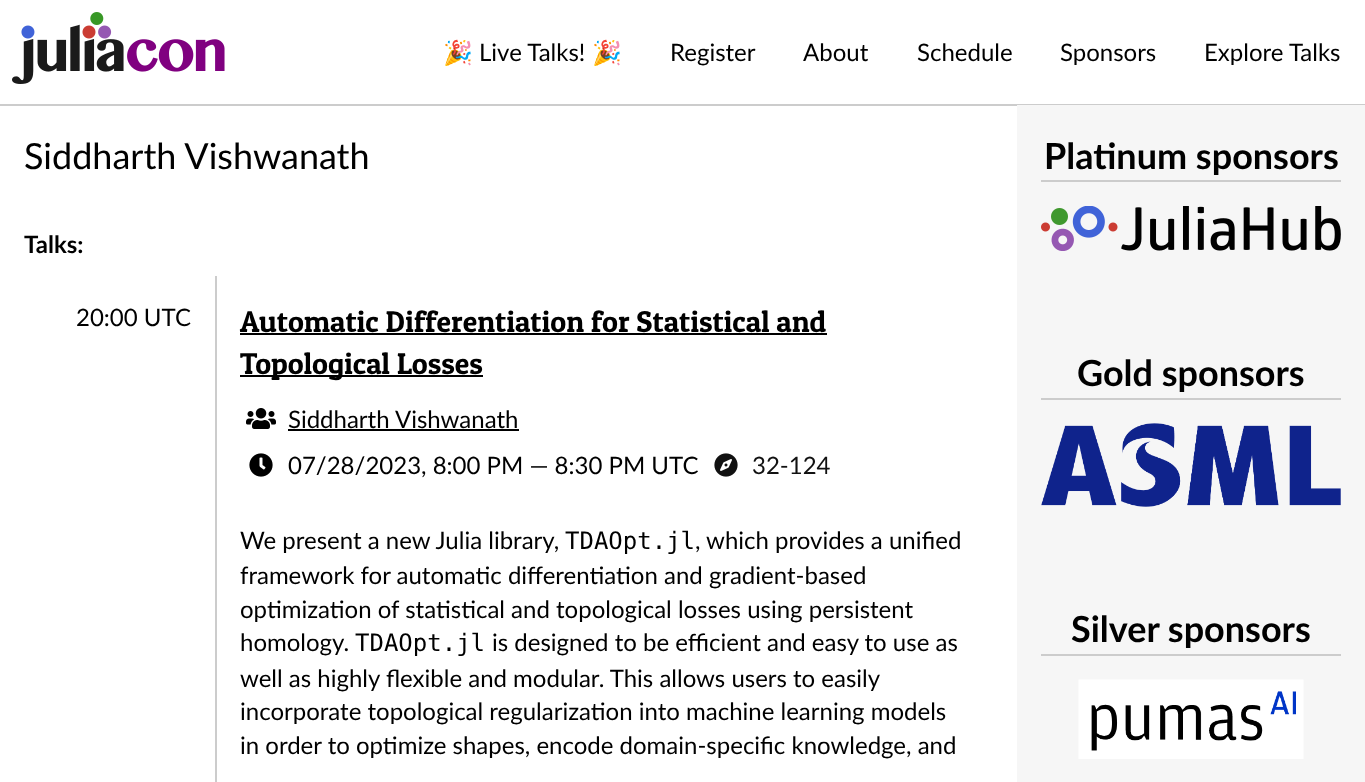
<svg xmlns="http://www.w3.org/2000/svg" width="1365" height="782">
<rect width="100%" height="100%" fill="#fff"/>
<rect y="104" width="1365" height="2" fill="#ccc"/>
<image x="12" y="12" width="213" height="72" href="media/1.png"/>
<text x="443" y="61" style="font-family:Noto Color Emoji;font-size:24px;fill:#000">🎉</text>
<text x="479" y="61" style="font-family:Lato;font-size:24px;fill:#000">Live Talks!</text>
<text x="592" y="61" style="font-family:Noto Color Emoji;font-size:24px;fill:#000">🎉</text>
<text x="670" y="61" style="font-family:Lato;font-size:24px;fill:#000">Register</text>
<text x="803" y="61" style="font-family:Lato;font-size:24px;fill:#000">About</text>
<text x="917" y="61" style="font-family:Lato;font-size:24px;fill:#000">Schedule</text>
<text x="1060" y="61" style="font-family:Lato;font-size:24px;fill:#000">Sponsors</text>
<text x="1204" y="61" style="font-family:Lato;font-size:24px;fill:#000">Explore Talks</text>
<text x="24" y="169" style="font-family:Lato;font-size:36px;fill:#000">Siddharth Vishwanath</text>
<text x="24" y="253" style="font-family:Lato;font-size:24px;font-weight:bold;fill:#000">Talks:</text>
<rect x="215" y="276" width="2" height="506" fill="#ccc"/>
<text x="76" y="326" style="font-family:Lato;font-size:24px;fill:#000">20:00 UTC</text>
<text x="240" y="332" style="font-family:Patua One;font-size:30px;fill:#000">Automatic Differentiation for Statistical and</text>
<rect x="240" y="333" width="587" height="2" fill="#000"/>
<rect x="240" y="375" width="243" height="2" fill="#000"/>
<text x="240" y="374" style="font-family:Patua One;font-size:30px;fill:#000">Topological Losses</text>
<image x="246" y="408" width="30" height="21" href="media/2.png"/>
<text x="288" y="428" style="font-family:Lato;font-size:24px;fill:#000">Siddharth Vishwanath</text>
<rect x="288" y="429" width="231" height="2" fill="#000"/>
<image x="249" y="453" width="24" height="24" href="media/3.png"/>
<text x="288" y="474" style="font-family:Lato;font-size:24px;fill:#000">07/28/2023, 8:00 PM — 8:30 PM UTC</text>
<image x="714" y="453" width="24" height="24" href="media/4.png"/>
<text x="752" y="474" style="font-family:Lato;font-size:24px;fill:#111">32-124</text>
<text x="240" y="549" style="font-family:Lato;font-size:24px;fill:#000">We present a new Julia library,</text>
<text x="565" y="549" style="font-family:DejaVu Sans Mono;font-size:24px;fill:#000">TDAOpt.jl</text>
<text x="695" y="549" style="font-family:Lato;font-size:24px;fill:#000">, which provides a unified</text>
<text x="240" y="584" style="font-family:Lato;font-size:24px;fill:#000">framework for automatic differentiation and gradient-based</text>
<text x="240" y="618" style="font-family:Lato;font-size:24px;fill:#000">optimization of statistical and topological losses using persistent</text>
<text x="240" y="651" style="font-family:Lato;font-size:24px;fill:#000">homology.</text>
<text x="355" y="651" style="font-family:DejaVu Sans Mono;font-size:24px;fill:#000">TDAOpt.jl</text>
<text x="492" y="651" style="font-family:Lato;font-size:24px;fill:#000">is designed to be efficient and easy to use as</text>
<text x="240" y="687" style="font-family:Lato;font-size:24px;fill:#000">well as highly flexible and modular. This allows users to easily</text>
<text x="240" y="720" style="font-family:Lato;font-size:24px;fill:#000">incorporate topological regularization into machine learning models</text>
<text x="240" y="754" style="font-family:Lato;font-size:24px;fill:#000">in order to optimize shapes, encode domain-specific knowledge, and</text>
<rect x="1017" y="105" width="348" height="677" fill="#f6f6f6"/>
<rect x="1041" y="180" width="300" height="2" fill="#ccc"/>
<text x="1044" y="169" style="font-family:Lato;font-size:36px;font-weight:bold;fill:#000">Platinum sponsors</text>
<image x="1041" y="206" width="300" height="45" href="media/5.png"/>
<rect x="1041" y="398" width="300" height="2" fill="#ccc"/>
<text x="1077" y="386" style="font-family:Lato;font-size:36px;font-weight:bold;fill:#000">Gold sponsors</text>
<image x="1041" y="423" width="300" height="84" href="media/6.png"/>
<rect x="1041" y="654" width="300" height="2" fill="#ccc"/>
<text x="1071" y="642" style="font-family:Lato;font-size:36px;font-weight:bold;fill:#000">Silver sponsors</text>
<image x="1078" y="679" width="226" height="80" href="media/7.png"/>
</svg>
